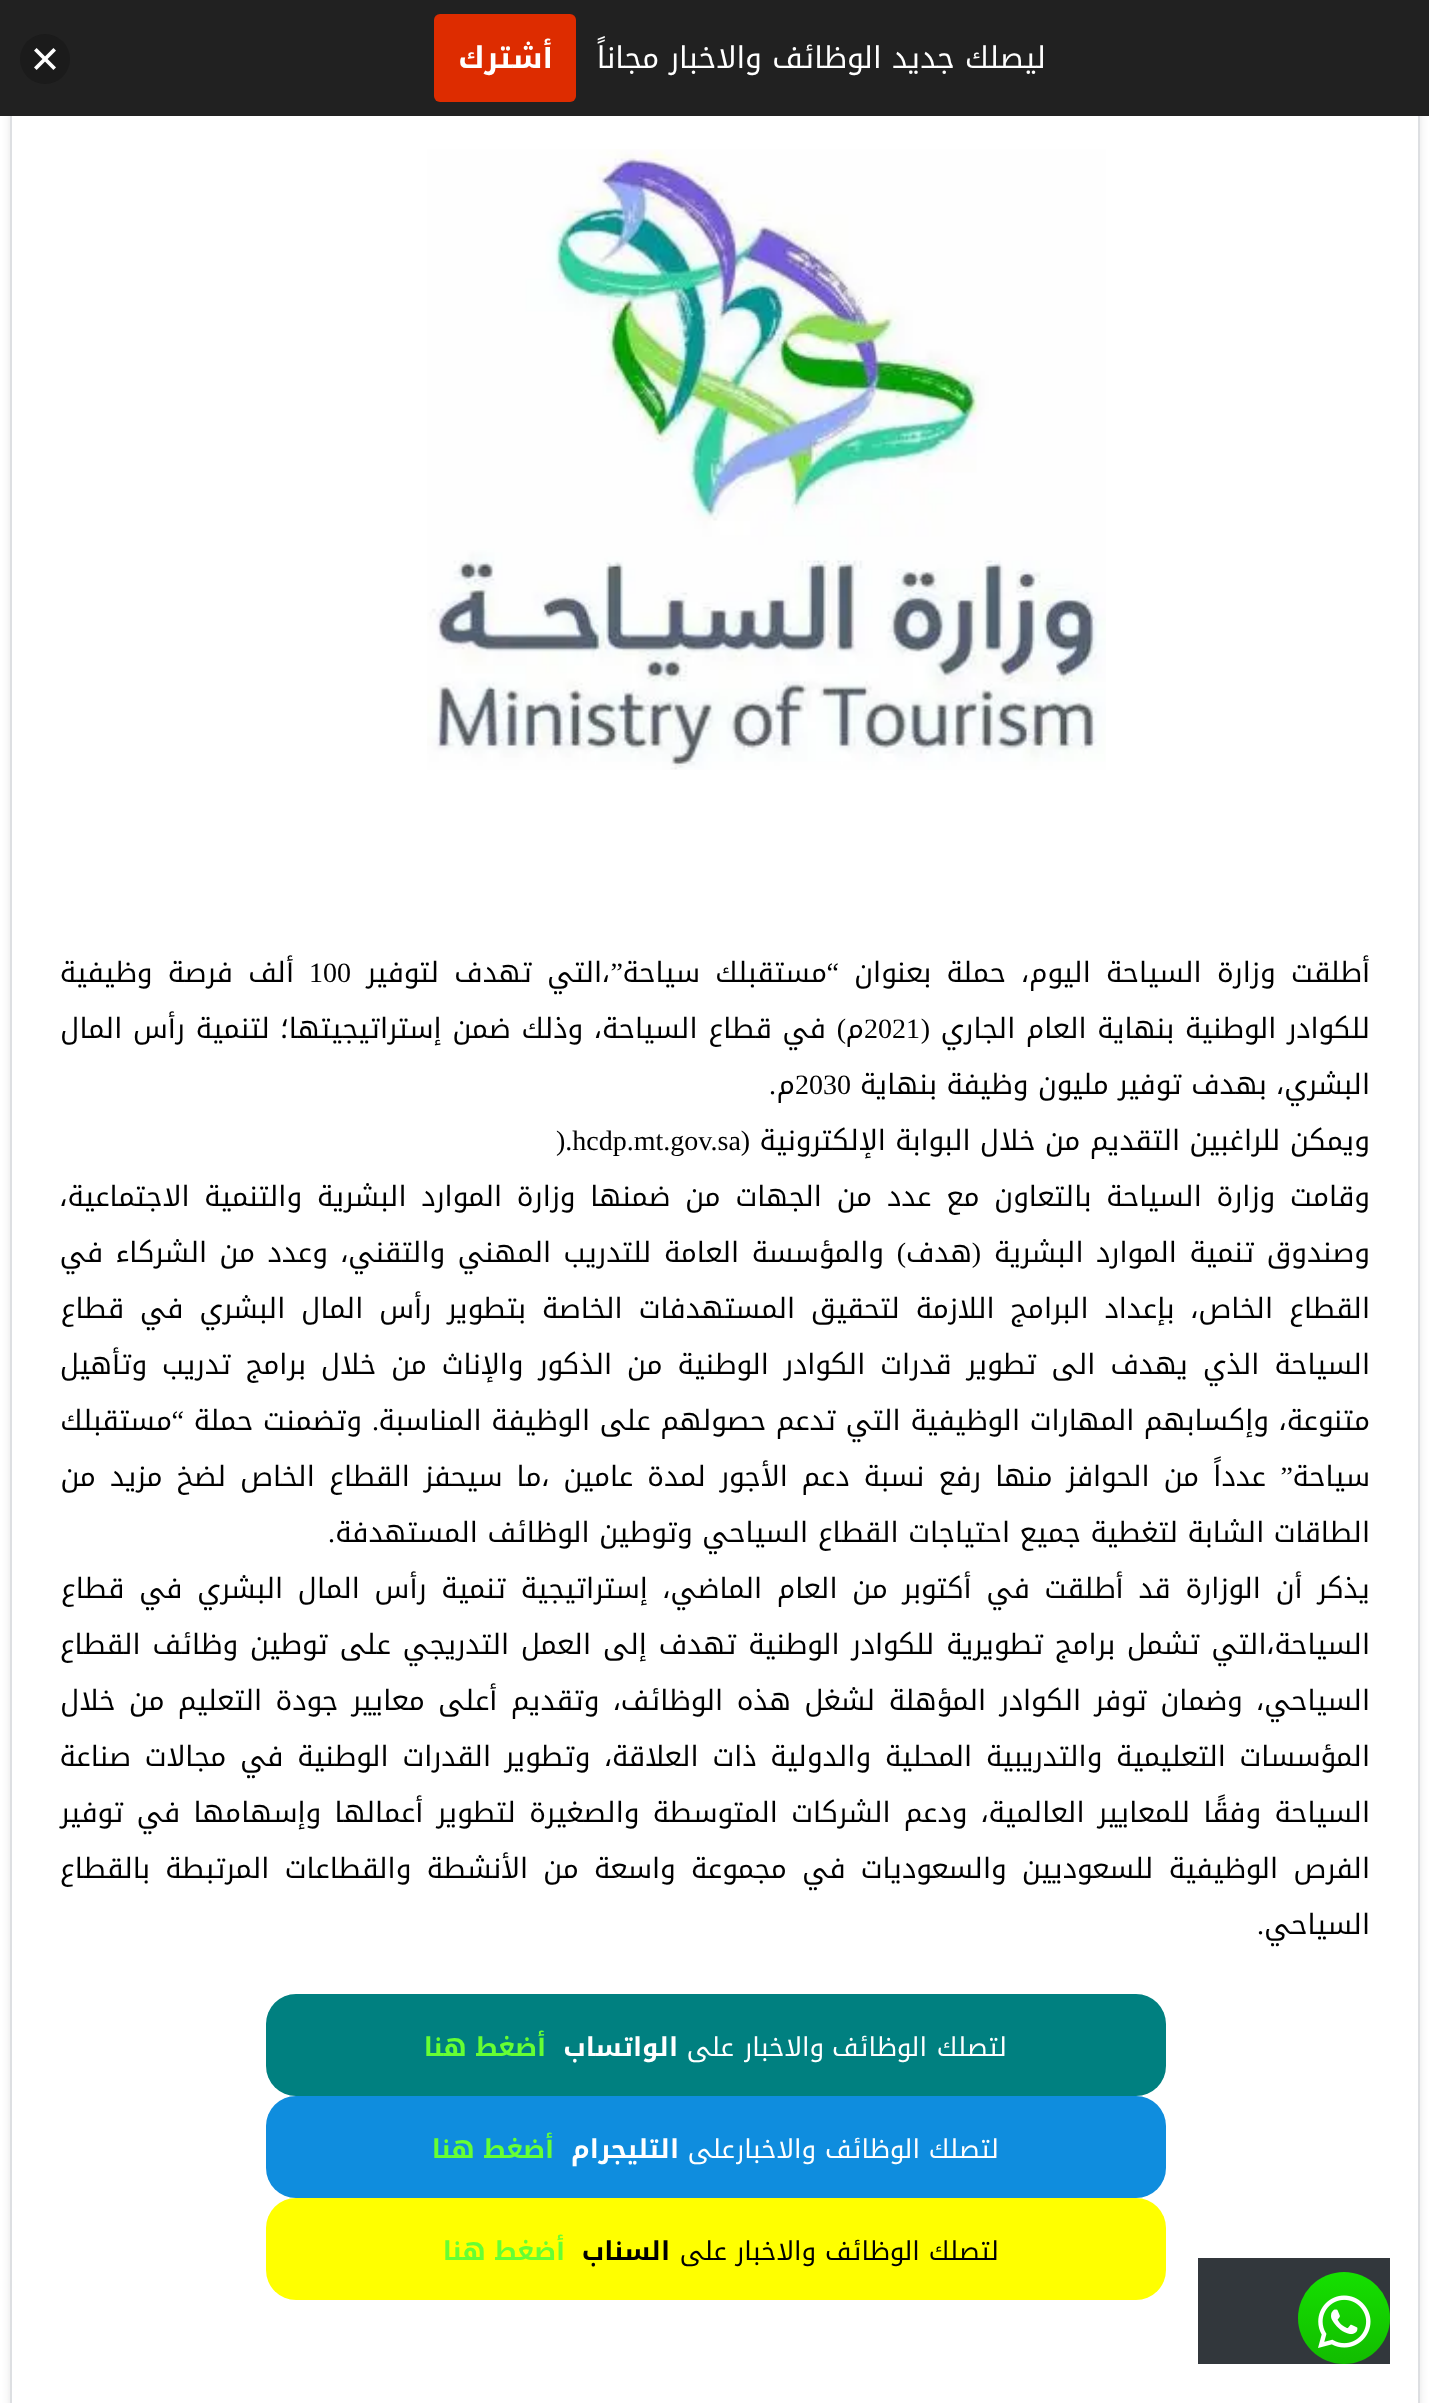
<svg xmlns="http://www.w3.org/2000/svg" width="1429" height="2403">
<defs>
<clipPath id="clip1"><path d="M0 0h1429v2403h-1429zm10-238h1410v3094h-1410z" clip-rule="evenodd"/></clipPath>
<linearGradient id="g1" gradientUnits="userSpaceOnUse" x1="1344" y1="2272" x2="1344" y2="2364"><stop offset="0" stop-color="#15e000"/><stop offset="1" stop-color="#12bc00"/></linearGradient>
</defs>
<rect width="100%" height="100%" fill="#fff"/>
<g clip-path="url(#clip1)">
<rect x="10" y="-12" width="1410" height="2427" fill="#0000001a" filter="blur(4px)"/>
</g>
<rect x="11" y="-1" width="1408" height="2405" fill="none" stroke="#dddfe2" stroke-width="2"/>
<rect width="1429" height="116" fill="#212121"/>
<text x="1046" y="68" style="font-family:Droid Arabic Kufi;font-size:30px;direction:rtl;fill:#fff">ليصلك جديد الوظائف والاخبار مجاناً</text>
<rect x="434" y="14" width="142" height="88" rx="6" fill="#dd2c00"/>
<text x="553" y="68" style="font-family:Droid Arabic Kufi;font-size:30px;font-weight:bold;direction:rtl;fill:#fff">أشترك</text>
<circle cx="45" cy="59" r="25" fill="#1b1b1b"/>
<image x="34" y="48" width="22" height="22" href="media/1.png"/>
<image x="427" y="149" width="679" height="621" href="media/2.png"/>
<text x="1370" y="982" word-spacing="5.75" style="font-family:Droid Arabic Kufi;font-size:28px;direction:rtl;fill:#000">أطلقت وزارة السياحة اليوم، حملة بعنوان</text>
<text x="839" y="982" style="font-family:Liberation Serif;font-size:28px;direction:rtl;fill:#000">“</text>
<text x="827" y="982" word-spacing="5.75" style="font-family:Droid Arabic Kufi;font-size:28px;direction:rtl;fill:#000">مستقبلك سياحة</text>
<text x="623" y="982" style="font-family:Liberation Serif;font-size:28px;direction:rtl;fill:#000">”</text>
<text x="610" y="982" word-spacing="5.75" style="font-family:Droid Arabic Kufi;font-size:28px;direction:rtl;fill:#000">،التي تهدف لتوفير</text>
<text x="309" y="982" style="font-family:Liberation Serif;font-size:28px;fill:#000">100</text>
<text x="294" y="982" word-spacing="5.75" style="font-family:Droid Arabic Kufi;font-size:28px;direction:rtl;fill:#000">ألف فرصة وظيفية</text>
<text x="1370" y="1038" word-spacing="1.25" style="font-family:Droid Arabic Kufi;font-size:28px;direction:rtl;fill:#000">للكوادر الوطنية بنهاية العام الجاري</text>
<text x="930" y="1038" style="font-family:Liberation Serif;font-size:28px;direction:rtl;fill:#000">(</text>
<text x="864" y="1038" style="font-family:Liberation Serif;font-size:28px;fill:#000">2021</text>
<text x="864" y="1038" style="font-family:Droid Arabic Kufi;font-size:28px;direction:rtl;fill:#000">م</text>
<text x="846" y="1038" style="font-family:Liberation Serif;font-size:28px;direction:rtl;fill:#000">)</text>
<text x="826" y="1038" word-spacing="1.25" style="font-family:Droid Arabic Kufi;font-size:28px;direction:rtl;fill:#000">في قطاع السياحة، وذلك ضمن إستراتيجيتها؛ لتنمية رأس المال</text>
<text x="1370" y="1094" style="font-family:Droid Arabic Kufi;font-size:28px;direction:rtl;fill:#000">البشري، بهدف توفير مليون وظيفة بنهاية</text>
<text x="795" y="1094" style="font-family:Liberation Serif;font-size:28px;fill:#000">2030</text>
<text x="795" y="1094" style="font-family:Droid Arabic Kufi;font-size:28px;direction:rtl;fill:#000">م</text>
<text x="776" y="1094" style="font-family:Liberation Serif;font-size:28px;direction:rtl;fill:#000">.</text>
<text x="1370" y="1150" style="font-family:Droid Arabic Kufi;font-size:28px;direction:rtl;fill:#000">ويمكن للراغبين التقديم من خلال البوابة الإلكترونية</text>
<text x="750" y="1150" style="font-family:Liberation Serif;font-size:28px;direction:rtl;fill:#000">(</text>
<text x="556" y="1150" style="font-family:Liberation Serif;font-size:28px;fill:#000">).hcdp.mt.gov.sa</text>
<text x="1370" y="1206" word-spacing="5.25" style="font-family:Droid Arabic Kufi;font-size:28px;direction:rtl;fill:#000">وقامت وزارة السياحة بالتعاون مع عدد من الجهات من ضمنها وزارة الموارد البشرية والتنمية الاجتماعية،</text>
<text x="1370" y="1262" word-spacing="3" style="font-family:Droid Arabic Kufi;font-size:28px;direction:rtl;fill:#000">وصندوق تنمية الموارد البشرية</text>
<text x="981" y="1262" style="font-family:Liberation Serif;font-size:28px;direction:rtl;fill:#000">(</text>
<text x="972" y="1262" style="font-family:Droid Arabic Kufi;font-size:28px;direction:rtl;fill:#000">هدف</text>
<text x="906" y="1262" style="font-family:Liberation Serif;font-size:28px;direction:rtl;fill:#000">)</text>
<text x="884" y="1262" word-spacing="3" style="font-family:Droid Arabic Kufi;font-size:28px;direction:rtl;fill:#000">والمؤسسة العامة للتدريب المهني والتقني، وعدد من الشركاء في</text>
<text x="1370" y="1318" word-spacing="6.5" style="font-family:Droid Arabic Kufi;font-size:28px;direction:rtl;fill:#000">القطاع الخاص، بإعداد البرامج اللازمة لتحقيق المستهدفات الخاصة بتطوير رأس المال البشري في قطاع</text>
<text x="1370" y="1374" word-spacing="5.5" style="font-family:Droid Arabic Kufi;font-size:28px;direction:rtl;fill:#000">السياحة الذي يهدف الى تطوير قدرات الكوادر الوطنية من الذكور والإناث من خلال برامج تدريب وتأهيل</text>
<text x="1370" y="1430" word-spacing="0.25" style="font-family:Droid Arabic Kufi;font-size:28px;direction:rtl;fill:#000">متنوعة، وإكسابهم المهارات الوظيفية التي تدعم حصولهم على الوظيفة المناسبة</text>
<text x="362" y="1430" word-spacing="0.25" style="font-family:Droid Arabic Kufi;font-size:28px;direction:rtl;fill:#000">وتضمنت حملة</text>
<text x="184" y="1430" style="font-family:Liberation Serif;font-size:28px;direction:rtl;fill:#000">“</text>
<text x="172" y="1430" style="font-family:Droid Arabic Kufi;font-size:28px;direction:rtl;fill:#000">مستقبلك</text>
<text x="379" y="1430" style="font-family:Liberation Serif;font-size:28px;direction:rtl;fill:#000">.</text>
<text x="1370" y="1486" style="font-family:Droid Arabic Kufi;font-size:28px;direction:rtl;fill:#000">سياحة</text>
<text x="1293" y="1486" style="font-family:Liberation Serif;font-size:28px;direction:rtl;fill:#000">”</text>
<text x="1266" y="1486" word-spacing="4.6" style="font-family:Droid Arabic Kufi;font-size:28px;direction:rtl;fill:#000">عدداً من الحوافز منها رفع نسبة دعم الأجور لمدة عامين ،ما سيحفز القطاع الخاص لضخ مزيد من</text>
<text x="1370" y="1542" style="font-family:Droid Arabic Kufi;font-size:28px;direction:rtl;fill:#000">الطاقات الشابة لتغطية جميع احتياجات القطاع السياحي وتوطين الوظائف المستهدفة</text>
<text x="335" y="1542" style="font-family:Liberation Serif;font-size:28px;direction:rtl;fill:#000">.</text>
<text x="1370" y="1598" word-spacing="5.25" style="font-family:Droid Arabic Kufi;font-size:28px;direction:rtl;fill:#000">يذكر أن الوزارة قد أطلقت في أكتوبر من العام الماضي، إستراتيجية تنمية رأس المال البشري في قطاع</text>
<text x="1370" y="1654" word-spacing="2.4" style="font-family:Droid Arabic Kufi;font-size:28px;direction:rtl;fill:#000">السياحة،التي تشمل برامج تطويرية للكوادر الوطنية تهدف إلى العمل التدريجي على توطين وظائف القطاع</text>
<text x="1370" y="1710" word-spacing="4" style="font-family:Droid Arabic Kufi;font-size:28px;direction:rtl;fill:#000">السياحي، وضمان توفر الكوادر المؤهلة لشغل هذه الوظائف، وتقديم أعلى معايير جودة التعليم من خلال</text>
<text x="1370" y="1766" word-spacing="4.25" style="font-family:Droid Arabic Kufi;font-size:28px;direction:rtl;fill:#000">المؤسسات التعليمية والتدريبية المحلية والدولية ذات العلاقة، وتطوير القدرات الوطنية في مجالات صناعة</text>
<text x="1370" y="1822" word-spacing="3.75" style="font-family:Droid Arabic Kufi;font-size:28px;direction:rtl;fill:#000">السياحة وفقًا للمعايير العالمية، ودعم الشركات المتوسطة والصغيرة لتطوير أعمالها وإسهامها في توفير</text>
<text x="1370" y="1878" word-spacing="5.75" style="font-family:Droid Arabic Kufi;font-size:28px;direction:rtl;fill:#000">الفرص الوظيفية للسعوديين والسعوديات في مجموعة واسعة من الأنشطة والقطاعات المرتبطة بالقطاع</text>
<text x="1370" y="1934" style="font-family:Droid Arabic Kufi;font-size:28px;direction:rtl;fill:#000">السياحي</text>
<text x="1264" y="1934" style="font-family:Liberation Serif;font-size:28px;direction:rtl;fill:#000">.</text>
<rect x="266" y="1994" width="900" height="102" rx="30" fill="#008080"/>
<text x="1007" y="2056" style="font-family:Droid Arabic Kufi;font-size:26px;direction:rtl;fill:#fff">لتصلك</text>
<text x="927" y="2056" style="font-family:Droid Arabic Kufi;font-size:26px;direction:rtl;fill:#fff">الوظائف</text>
<text x="824" y="2056" style="font-family:Droid Arabic Kufi;font-size:26px;direction:rtl;fill:#fff">والاخبار</text>
<rect x="742" y="2059" width="2" height="4" fill="#008080"/>
<text x="734" y="2056" style="font-family:Droid Arabic Kufi;font-size:26px;direction:rtl;fill:#fff">على</text>
<text x="678" y="2056" style="font-family:Droid Arabic Kufi;font-size:26px;font-weight:bold;direction:rtl;fill:#fff">الواتساب</text>
<text x="546" y="2056" style="font-family:Droid Arabic Kufi;font-size:26px;font-weight:bold;direction:rtl;fill:#6f3">أضغط هنا</text>
<rect x="266" y="2096" width="900" height="102" rx="30" fill="#0f8dde"/>
<text x="999" y="2158" style="font-family:Droid Arabic Kufi;font-size:26px;direction:rtl;fill:#fff">لتصلك</text>
<text x="920" y="2158" style="font-family:Droid Arabic Kufi;font-size:26px;direction:rtl;fill:#fff">الوظائف</text>
<text x="816" y="2158" style="font-family:Droid Arabic Kufi;font-size:26px;direction:rtl;fill:#fff">والاخبار</text>
<rect x="734" y="2161" width="2" height="4" fill="#0f8dde"/>
<text x="735" y="2158" style="font-family:Droid Arabic Kufi;font-size:26px;direction:rtl;fill:#fff">على</text>
<text x="679" y="2158" style="font-family:Droid Arabic Kufi;font-size:26px;font-weight:bold;direction:rtl;fill:#fff">التليجرام</text>
<text x="554" y="2158" style="font-family:Droid Arabic Kufi;font-size:26px;font-weight:bold;direction:rtl;fill:#6f3">أضغط هنا</text>
<rect x="266" y="2198" width="900" height="102" rx="30" fill="#ff0"/>
<text x="999" y="2260" style="font-family:Droid Arabic Kufi;font-size:26px;direction:rtl;fill:#000">لتصلك الوظائف والاخبار على</text>
<text x="670" y="2260" style="font-family:Droid Arabic Kufi;font-size:26px;font-weight:bold;direction:rtl;fill:#000">السناب</text>
<text x="565" y="2260" style="font-family:Droid Arabic Kufi;font-size:26px;font-weight:bold;direction:rtl;fill:#6f3">أضغط هنا</text>
<rect x="1198" y="2258" width="192" height="106" fill="#32373c"/>
<circle cx="1344" cy="2318" r="46" fill="url(#g1)"/>
<image x="1318" y="2295" width="53" height="53" href="media/3.png"/>
</svg>
